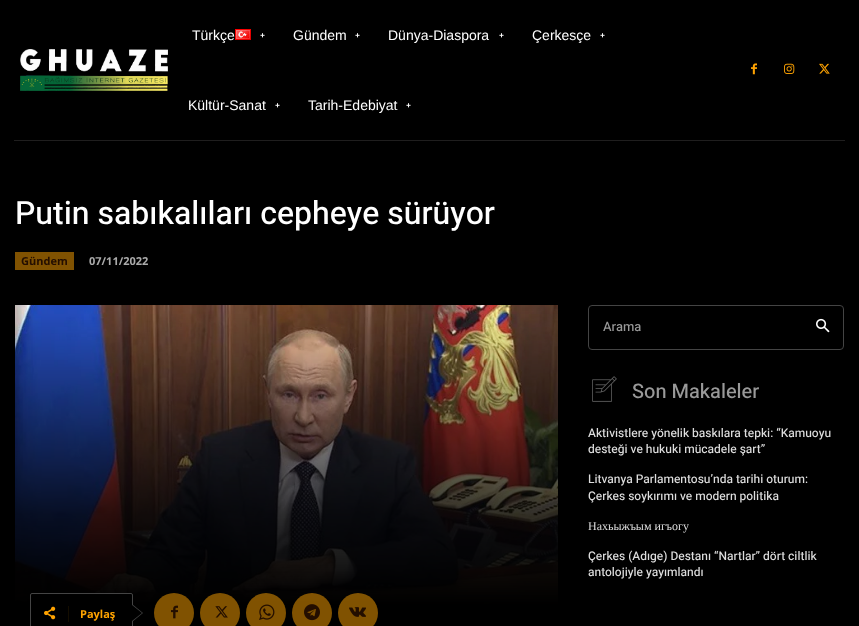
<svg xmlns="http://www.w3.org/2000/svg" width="859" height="626">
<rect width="100%" height="100%" fill="#000"/>
<image x="20" y="49" width="148" height="42" href="media/1.png"/>
<text x="192" y="40" style="font-family:Liberation Sans;font-size:14px;fill:#fff">Türkçe</text>
<image x="235" y="29" width="16" height="11" href="media/2.png"/>
<image x="260" y="33" width="5" height="5" href="media/3.png"/>
<text x="293" y="40" style="font-family:Liberation Sans;font-size:14px;fill:#fff">Gündem</text>
<image x="355" y="33" width="5" height="5" href="media/3.png"/>
<text x="388" y="40" style="font-family:Liberation Sans;font-size:14px;fill:#fff">Dünya-Diaspora</text>
<image x="499" y="33" width="5" height="5" href="media/3.png"/>
<text x="532" y="40" style="font-family:Liberation Sans;font-size:14px;fill:#fff">Çerkesçe</text>
<image x="600" y="33" width="5" height="5" href="media/3.png"/>
<text x="188" y="110" style="font-family:Liberation Sans;font-size:14px;fill:#fff">Kültür-Sanat</text>
<image x="275" y="103" width="5" height="5" href="media/3.png"/>
<text x="308" y="110" style="font-family:Liberation Sans;font-size:14px;fill:#fff">Tarih-Edebiyat</text>
<image x="406" y="103" width="5" height="5" href="media/3.png"/>
<image x="751" y="63" width="6" height="12" href="media/4.png"/>
<image x="784" y="63" width="11" height="11" href="media/5.png"/>
<image x="819" y="63" width="11" height="11" href="media/6.png"/>
<rect x="14" y="140" width="831" height="1" fill="#1f1e1e"/>
<text x="15" y="224" style="font-family:Heebo;font-size:32px;font-weight:500;fill:#fff">Putin sabıkalıları cepheye sürüyor</text>
<rect x="15" y="252" width="59" height="18" fill="#805201"/>
<text x="21" y="265" style="font-family:Open Sans;font-size:11px;font-weight:bold;fill:#230e00">Gündem</text>
<text x="89" y="265" style="font-family:Open Sans;font-size:11px;font-weight:bold;fill:#aaa">07/11/2022</text>
<rect x="588.5" y="305.5" width="255" height="44" rx="3.5" fill="none" stroke="#444"/>
<text x="603" y="331" style="font-family:Heebo;font-size:13px;font-weight:500;fill:#999">Arama</text>
<image x="816" y="318" width="14" height="15" href="media/7.png"/>
<image x="592" y="376" width="25" height="26" href="media/8.png"/>
<text x="632" y="398" style="font-family:Heebo;font-size:20px;font-weight:500;fill:#999">Son Makaleler</text>
<text x="588" y="437" style="font-family:Heebo;font-size:12px;font-weight:500;fill:#ddd">Aktivistlere yönelik baskılara tepki: “Kamuoyu</text>
<text x="588" y="453" style="font-family:Heebo;font-size:12px;font-weight:500;fill:#ddd">desteği ve hukuki mücadele şart”</text>
<text x="588" y="483" style="font-family:Heebo;font-size:12px;font-weight:500;fill:#ddd">Litvanya Parlamentosu’nda tarihi oturum:</text>
<text x="588" y="500" style="font-family:Heebo;font-size:12px;font-weight:500;fill:#ddd">Çerkes soykırımı ve modern politika</text>
<text x="588" y="530" style="font-family:Liberation Serif;font-size:12px;fill:#ddd">Нахьыжъым игъогу</text>
<text x="588" y="560" style="font-family:Heebo;font-size:12px;font-weight:500;fill:#ddd">Çerkes (Adıge) Destanı “Nartlar” dört ciltlik</text>
<text x="588" y="576" style="font-family:Heebo;font-size:12px;font-weight:500;fill:#ddd">antolojiyle yayımlandı</text>
<image x="15" y="305" width="543" height="300" href="media/9.png"/>
<rect x="30.5" y="593.5" width="102" height="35" rx="1.5" fill="#000" stroke="#444"/>
<path d="M132 622v-18l11 9z" fill="#444"/>
<image x="44" y="606" width="12" height="14" href="media/10.png"/>
<rect x="68" y="606" width="1" height="16" fill="#140d00"/>
<text x="80" y="618" style="font-family:Open Sans;font-size:11px;font-weight:bold;fill:#ffa301">Paylaş</text>
<path d="M132 621v-16l10 8z" fill="#000"/>
<circle cx="174" cy="613" r="20" fill="#805201"/>
<image x="171" y="605" width="7" height="14" href="media/11.png"/>
<circle cx="220" cy="613" r="20" fill="#805201"/>
<image x="215" y="606" width="13" height="12" href="media/12.png"/>
<circle cx="266" cy="613" r="20" fill="#ffa30180"/>
<image x="259" y="604" width="16" height="16" href="media/13.png"/>
<circle cx="312" cy="613" r="20" fill="#ffa30180"/>
<image x="304" y="604" width="16" height="17" href="media/14.png"/>
<circle cx="358" cy="613" r="20" fill="#ffa30180"/>
<image x="349" y="607" width="17" height="10" href="media/15.png"/>
</svg>
